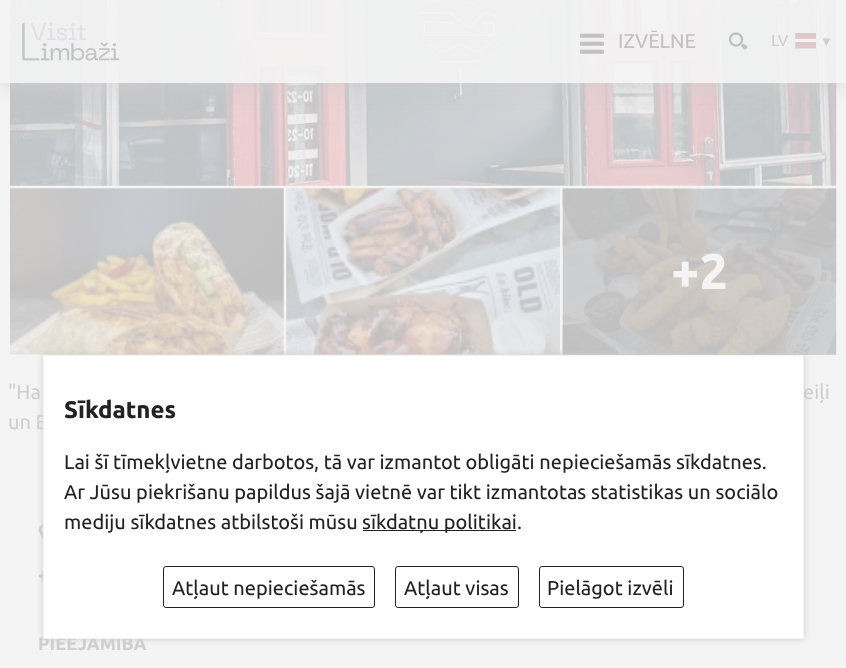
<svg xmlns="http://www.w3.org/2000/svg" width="846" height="668">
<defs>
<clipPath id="clip1"><path d="M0 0h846v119h-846zm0 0h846v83h-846z" clip-rule="evenodd"/></clipPath>
</defs>
<rect width="100%" height="100%" fill="#f4f4f4"/>
<rect x="563" y="354" width="273" height="1" fill="#d5d5d5"/>
<image x="10" y="0" width="827" height="186" href="media/5.png"/>
<g clip-path="url(#clip1)">
<rect x="1" y="3" width="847" height="82" fill="#cecdceb3" filter="blur(11px)"/>
</g>
<rect width="846" height="83" fill="#f4f4f4e6"/>
<image x="22" y="23" width="98" height="38" href="media/1.png"/>
<image x="580" y="33" width="24" height="21" href="media/2.png"/>
<text x="618" y="48" style="font-family:Ubuntu;font-size:20px;fill:#c1c1c1">IZVĒLNE</text>
<image x="729" y="32" width="19" height="18" href="media/3.png"/>
<text x="771" y="46" style="font-family:Ubuntu;font-size:16px;fill:#d1cfce">LV</text>
<image x="795" y="33" width="21" height="16" href="media/4.png"/>
<text x="820" y="46" style="font-family:Liberation Sans;font-size:13px;fill:#d1cfce">▼</text>
<image x="10" y="188" width="274" height="167" href="media/6.png"/>
<image x="286" y="188" width="274" height="167" href="media/7.png"/>
<image x="562" y="188" width="275" height="167" href="media/8.png"/>
<text x="671" y="289" style="font-family:Ubuntu;font-size:50px;font-weight:bold;fill:#f4f4f4">+2</text>
<text x="8" y="399" style="font-family:Ubuntu;font-size:20px;fill:#d1cfce">"Ha</text>
<text x="803" y="399" style="font-family:Ubuntu;font-size:20px;fill:#d1cfce">eiļi</text>
<text x="8" y="429" style="font-family:Ubuntu;font-size:20px;fill:#d1cfce">un B</text>
<image x="38" y="524" width="5" height="16" href="media/9.png"/>
<image x="38" y="571" width="5" height="10" href="media/10.png"/>
<text x="38" y="650" style="font-family:Ubuntu;font-size:18px;font-weight:bold;fill:#d1cfce">PIEEJAMĪBA</text>
<rect x="43" y="355" width="761" height="284" fill="#ccc" filter="blur(3px)"/>
<rect x="43.5" y="355.5" width="760" height="283" fill="#fff" stroke="#f2f2f2"/>
<text x="64" y="418" style="font-family:Ubuntu;font-size:24px;font-weight:bold;fill:#222">Sīkdatnes</text>
<text x="64" y="469" style="font-family:Ubuntu;font-size:20px;fill:#222">Lai šī tīmekļvietne darbotos, tā var izmantot obligāti nepieciešamās sīkdatnes.</text>
<text x="64" y="499" style="font-family:Ubuntu;font-size:20px;fill:#222">Ar Jūsu piekrišanu papildus šajā vietnē var tikt izmantotas statistikas un sociālo</text>
<text x="64" y="529" style="font-family:Ubuntu;font-size:20px;fill:#222">mediju sīkdatnes atbilstoši mūsu</text>
<rect x="363" y="530" width="153" height="1" fill="#222"/>
<text x="362" y="529" style="font-family:Ubuntu;font-size:20px;fill:#222">sīkdatņu politikai.</text>
<rect x="163.5" y="566.5" width="211" height="41" rx="2.5" fill="none" stroke="#222"/>
<text x="172" y="595" style="font-family:Ubuntu;font-size:20px;fill:#222">Atļaut nepieciešamās</text>
<rect x="395.5" y="566.5" width="123" height="41" rx="2.5" fill="none" stroke="#222"/>
<text x="404" y="595" style="font-family:Ubuntu;font-size:20px;fill:#222">Atļaut visas</text>
<rect x="539.5" y="566.5" width="144" height="41" rx="2.5" fill="none" stroke="#222"/>
<text x="547" y="595" style="font-family:Ubuntu;font-size:20px;fill:#222">Pielāgot izvēli</text>
</svg>
